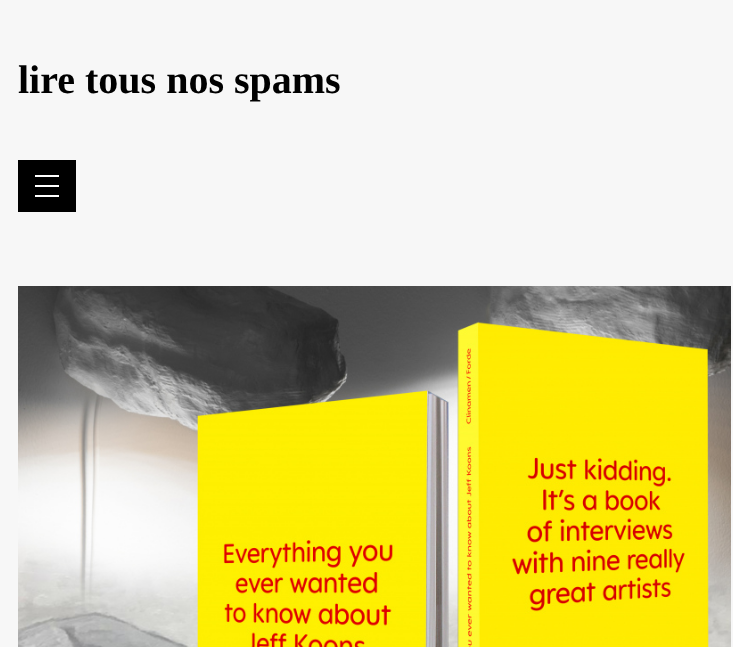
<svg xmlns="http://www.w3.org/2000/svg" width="733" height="647">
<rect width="100%" height="100%" fill="#f7f7f7"/>
<text x="18" y="93" style="font-family:Liberation Serif;font-size:40px;font-weight:bold;fill:#000">lire tous nos spams</text>
<rect x="18" y="160" width="58" height="52" fill="#000"/>
<rect x="35" y="185" width="24" height="2" fill="#fff"/>
<rect x="35" y="175" width="24" height="2" fill="#fff"/>
<rect x="35" y="195" width="24" height="2" fill="#fff"/>
<image x="18" y="286" width="713" height="361" href="media/1.png"/>
</svg>
